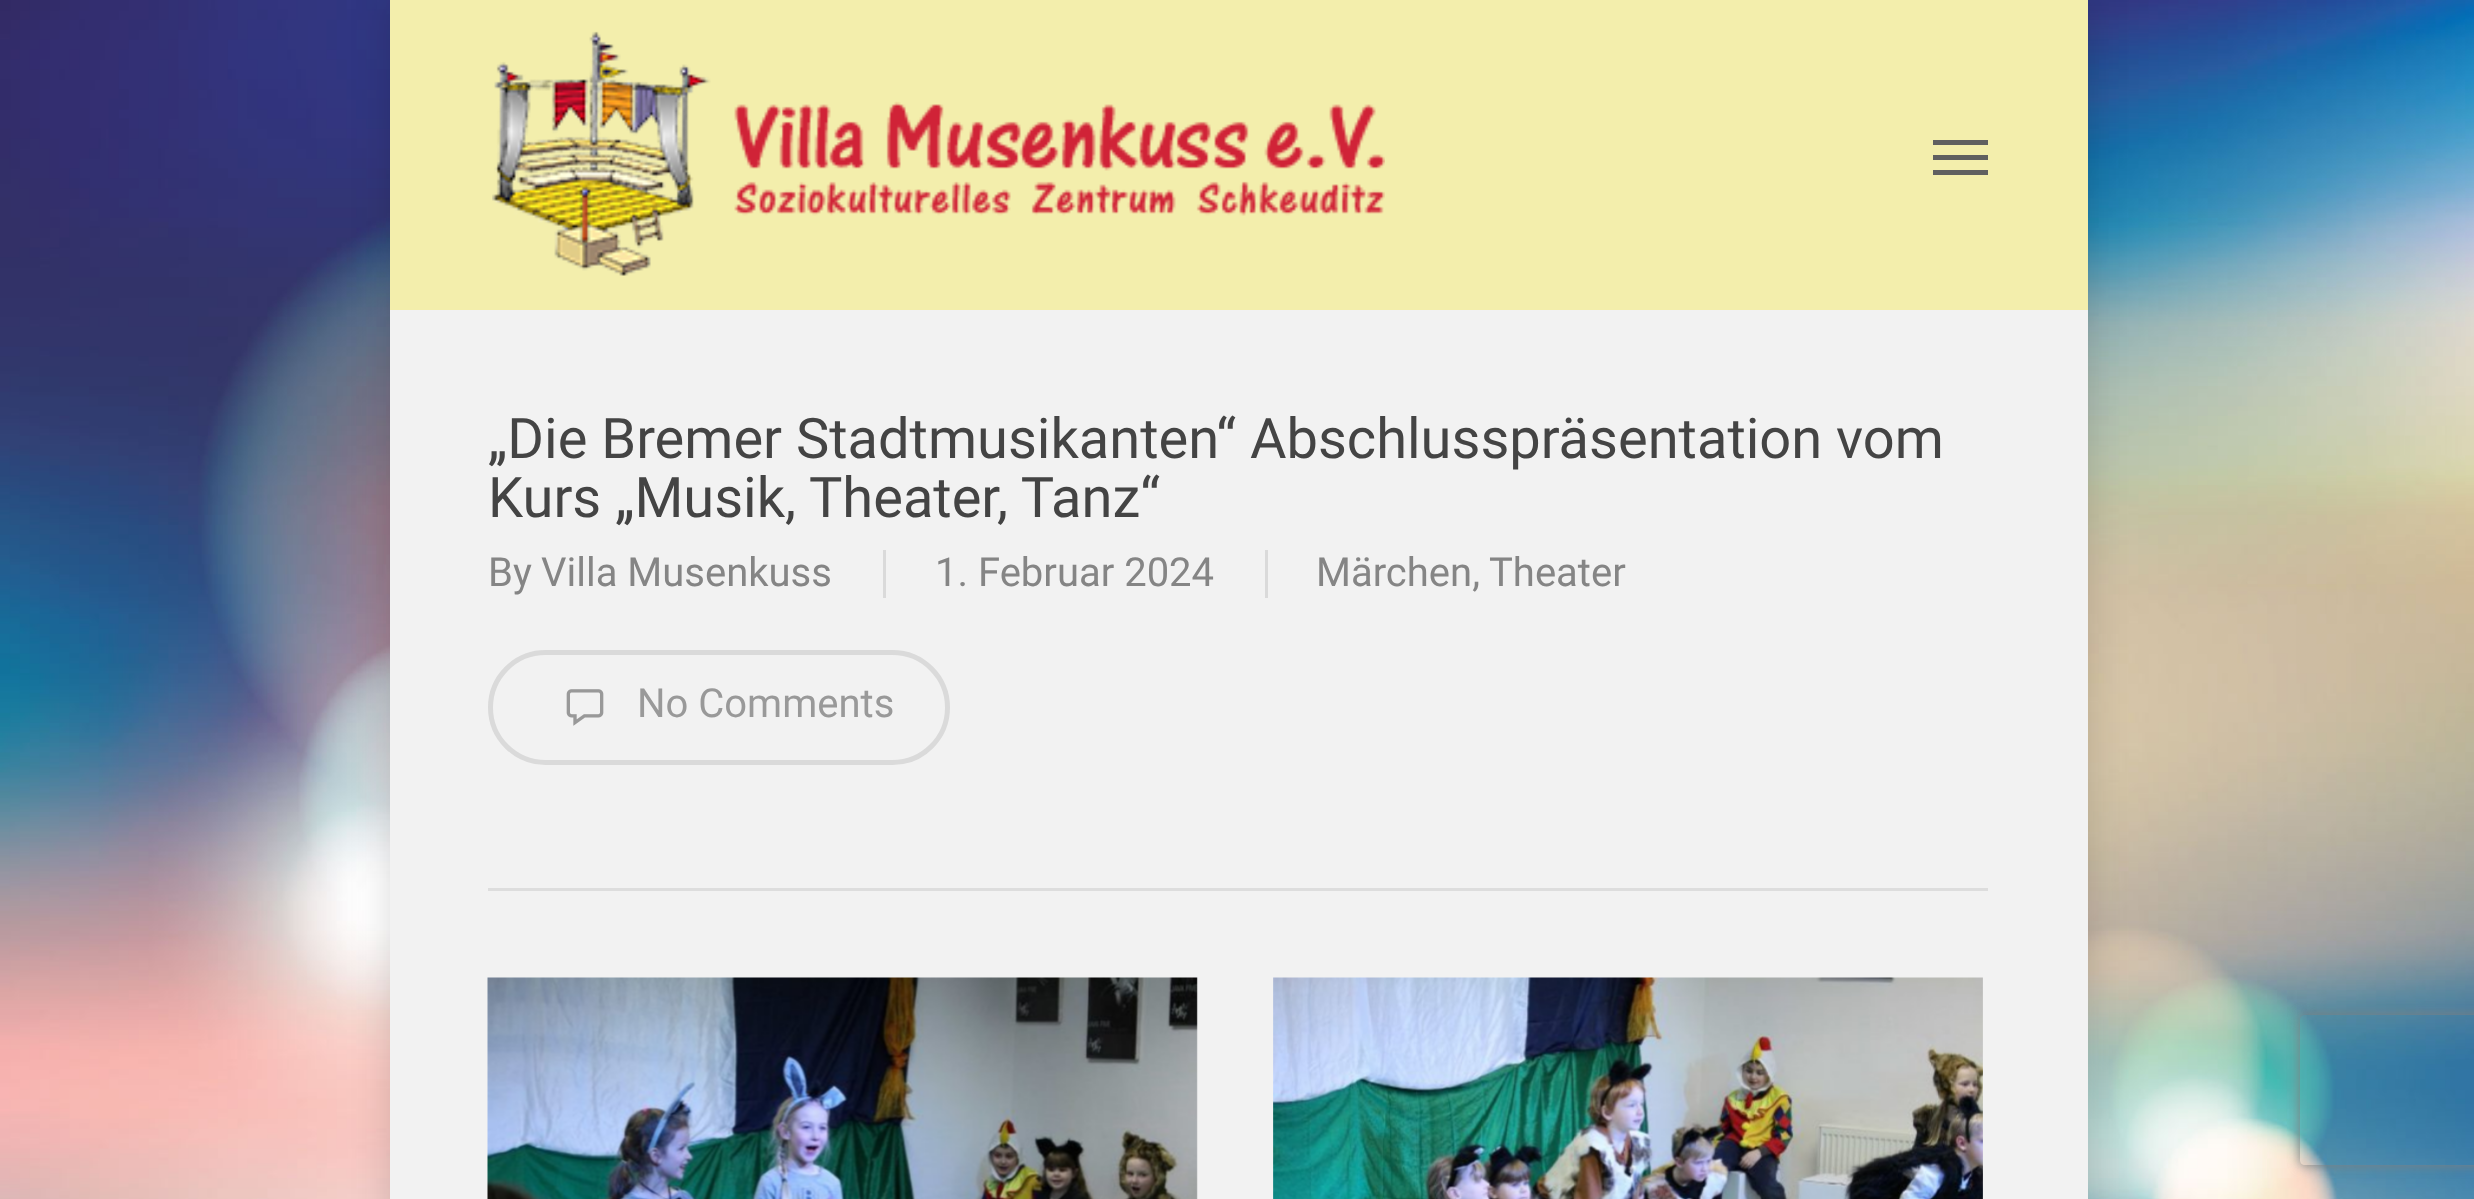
<svg xmlns="http://www.w3.org/2000/svg" width="2474" height="1199">
<defs>
<clipPath id="clip1"><path d="M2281 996h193v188h-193zm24 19h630c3 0 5 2 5 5v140c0 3-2 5-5 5h-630c-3 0-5-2-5-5v-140c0-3 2-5 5-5z" clip-rule="evenodd"/></clipPath>
</defs>
<rect width="100%" height="100%" fill="#fff"/>
<image x="0" y="0" width="2474" height="1199" href="media/1.png"/>
<rect x="390" width="1698" height="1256" fill="#00000026" filter="blur(19px)"/>
<rect x="390" width="1698" height="310" fill="#f3eeac"/>
<image x="492" y="31" width="893" height="245" href="media/2.png"/>
<rect x="1933" y="140" width="55" height="5" fill="#606060"/>
<rect x="1933" y="170" width="55" height="5" fill="#606060"/>
<rect x="1933" y="155" width="55" height="5" fill="#606060"/>
<rect x="390" y="310" width="1698" height="889" fill="#f2f2f2"/>
<rect x="488" y="888" width="1500" height="3" fill="#ddd"/>
<text x="488" y="458" style="font-family:Roboto;font-size:56px;fill:#444">„Die Bremer Stadtmusikanten“ Abschlusspräsentation vom</text>
<text x="488" y="517" style="font-family:Roboto;font-size:56px;fill:#444">Kurs „Musik, Theater, Tanz“</text>
<text x="488" y="586" style="font-family:Roboto;font-size:40px;fill:#858585">By</text>
<text x="541" y="586" style="font-family:Roboto;font-size:40px;fill:#858585">Villa Musenkuss</text>
<text x="935" y="586" style="font-family:Roboto;font-size:40px;fill:#858585">1. Februar 2024</text>
<rect x="883" y="550" width="3" height="48" fill="#dadada"/>
<text x="1316" y="586" style="font-family:Roboto;font-size:40px;fill:#858585">Märchen,</text>
<rect x="1265" y="550" width="3" height="48" fill="#dadada"/>
<text x="1489" y="586" style="font-family:Roboto;font-size:40px;fill:#858585">Theater</text>
<rect x="490.5" y="652.5" width="457" height="110" rx="55" fill="none" stroke="#dadada" stroke-width="5"/>
<image x="566" y="689" width="38" height="37" href="media/3.png"/>
<text x="637" y="717" style="font-family:Roboto;font-size:40px;fill:#999">No Comments</text>
<image x="487" y="977" width="711" height="222" href="media/4.png"/>
<image x="1273" y="977" width="710" height="222" href="media/5.png"/>
<g clip-path="url(#clip1)">
<rect x="2300" y="1015" width="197" height="150" rx="5" fill="#808080" filter="blur(6px)"/>
</g>
</svg>
